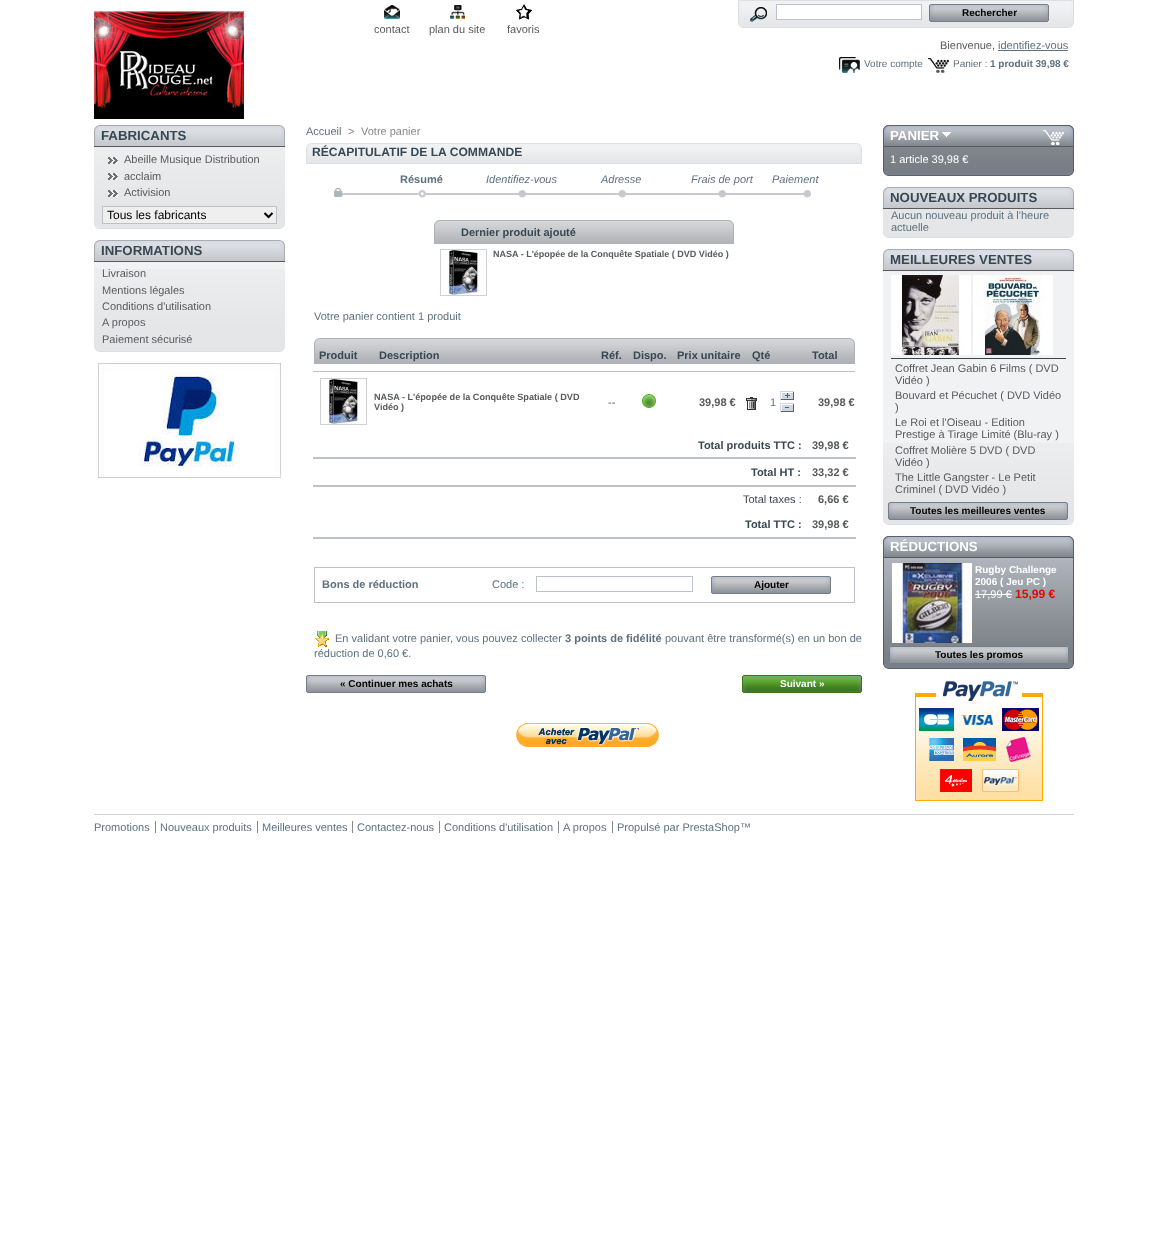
<svg xmlns="http://www.w3.org/2000/svg" width="1168" height="1243">
<rect width="100%" height="100%" fill="#fff"/>
<image x="94" y="11" width="150" height="108" href="media/1.png"/>
<image x="738" y="0" width="336" height="28" href="media/2.png"/>
<image x="750" y="7" width="17" height="15" href="media/3.png"/>
<rect x="776.5" y="4.5" width="145" height="15" fill="#fff" stroke="#bdc2c9"/>
<rect x="929" y="4" width="120" height="18" fill="#efefef"/>
<image x="929" y="4" width="120" height="18" href="media/4.png"/>
<text x="962" y="16" style="font-family:Liberation Sans;font-size:10px;font-weight:bold;fill:#000">Rechercher</text>
<image x="384" y="5" width="16" height="14" href="media/5.png"/>
<text x="374" y="33" style="font-family:Liberation Sans;font-size:11px;fill:#595a5e">contact</text>
<image x="450" y="5" width="15" height="14" href="media/6.png"/>
<text x="429" y="33" style="font-family:Liberation Sans;font-size:11px;fill:#595a5e">plan du site</text>
<image x="516" y="4" width="16" height="16" href="media/7.png"/>
<text x="507" y="33" style="font-family:Liberation Sans;font-size:11px;fill:#595a5e">favoris</text>
<text x="940" y="49" style="font-family:Liberation Sans;font-size:11px;fill:#595a5e">Bienvenue,</text>
<text x="998" y="49" style="font-family:Liberation Sans;font-size:11px;fill:#5d717e">identifiez-vous</text>
<rect x="998" y="50" width="70" height="1" fill="#5d717e"/>
<image x="839" y="57" width="21" height="16" href="media/8.png"/>
<text x="864" y="67" style="font-family:Liberation Sans;font-size:10px;fill:#5d717e">Votre compte</text>
<image x="928" y="58" width="21" height="15" href="media/9.png"/>
<text x="953" y="67" style="font-family:Liberation Sans;font-size:10px;fill:#5d717e">Panier :</text>
<text x="990" y="67" style="font-family:Liberation Sans;font-size:10px;font-weight:bold;fill:#5d717e">1 produit 39,98 €</text>
<image x="94" y="224" width="191" height="5" href="media/10.png"/>
<image x="94" y="125" width="191" height="21" href="media/11.png"/>
<rect x="94" y="146" width="191" height="1" fill="#595a5e"/>
<text x="101" y="140" style="font-family:Liberation Sans;font-size:13.25px;font-weight:bold;fill:#374853">FABRICANTS</text>
<image x="94" y="147" width="191" height="77" href="media/12.png"/>
<image x="108" y="157" width="10" height="7" href="media/13.png"/>
<text x="124" y="163" style="font-family:Liberation Sans;font-size:11px;fill:#595a5e">Abeille Musique Distribution</text>
<image x="108" y="173" width="10" height="7" href="media/13.png"/>
<text x="124" y="180" style="font-family:Liberation Sans;font-size:11px;fill:#595a5e">acclaim</text>
<image x="108" y="190" width="10" height="7" href="media/13.png"/>
<text x="124" y="196" style="font-family:Liberation Sans;font-size:11px;fill:#595a5e">Activision</text>
<rect x="102.5" y="206.5" width="174" height="17" fill="#efefef" stroke="#bdc2c9"/>
<path d="M264.5 213l4 4l4-4" fill="none" stroke="#000" stroke-width="2"/>
<text x="107" y="219" style="font-family:Liberation Sans;font-size:12px;fill:#000">Tous les fabricants</text>
<image x="94" y="347" width="191" height="5" href="media/10.png"/>
<image x="94" y="240" width="191" height="21" href="media/11.png"/>
<rect x="94" y="261" width="191" height="1" fill="#595a5e"/>
<text x="101" y="255" style="font-family:Liberation Sans;font-size:13.25px;font-weight:bold;fill:#374853">INFORMATIONS</text>
<rect x="94" y="262" width="191" height="7" fill="#f1f2f4"/>
<image x="94" y="269" width="191" height="78" href="media/14.png"/>
<text x="102" y="277" style="font-family:Liberation Sans;font-size:11px;fill:#595a5e">Livraison</text>
<text x="102" y="294" style="font-family:Liberation Sans;font-size:11px;fill:#595a5e">Mentions légales</text>
<text x="102" y="310" style="font-family:Liberation Sans;font-size:11px;fill:#595a5e">Conditions d'utilisation</text>
<text x="102" y="326" style="font-family:Liberation Sans;font-size:11px;fill:#595a5e">A propos</text>
<text x="102" y="343" style="font-family:Liberation Sans;font-size:11px;fill:#595a5e">Paiement sécurisé</text>
<image x="98" y="363" width="183" height="115" href="media/15.png"/>
<text x="306" y="135" style="font-family:Liberation Sans;font-size:11px;fill:#5d717e">Accueil</text>
<text x="348" y="135" style="font-family:Liberation Sans;font-size:11px;fill:#888">&gt;</text>
<text x="361" y="135" style="font-family:Liberation Sans;font-size:11px;fill:#888">Votre panier</text>
<image x="306" y="143" width="556" height="21" href="media/16.png"/>
<text x="312" y="156" style="font-family:Liberation Sans;font-size:12.1px;font-weight:bold;fill:#374853">RÉCAPITULATIF DE LA COMMANDE</text>
<image x="334" y="188" width="39" height="9" href="media/17.png"/>
<image x="373" y="190" width="99" height="8" href="media/18.png"/>
<text x="400" y="183" style="font-family:Liberation Sans;font-size:11px;font-weight:bold;fill:#5d717e">Résumé</text>
<image x="472" y="190" width="100" height="8" href="media/19.png"/>
<text x="486" y="183" style="font-family:Liberation Sans;font-size:11px;font-style:italic;fill:#5d717e">Identifiez-vous</text>
<image x="572" y="190" width="100" height="8" href="media/19.png"/>
<text x="601" y="183" style="font-family:Liberation Sans;font-size:11px;font-style:italic;fill:#5d717e">Adresse</text>
<image x="672" y="190" width="100" height="8" href="media/19.png"/>
<text x="691" y="183" style="font-family:Liberation Sans;font-size:11px;font-style:italic;fill:#5d717e">Frais de port</text>
<image x="772" y="190" width="39" height="8" href="media/20.png"/>
<text x="772" y="183" style="font-family:Liberation Sans;font-size:11px;font-style:italic;fill:#5d717e">Paiement</text>
<image x="710" y="220" width="24" height="24" href="media/21.png"/>
<image x="434" y="220" width="276" height="24" href="media/22.png"/>
<text x="461" y="236" style="font-family:Liberation Sans;font-size:11px;font-weight:bold;fill:#374853">Dernier produit ajouté</text>
<rect x="440.5" y="249.5" width="46" height="46" fill="none" stroke="#d0d1d5"/>
<image x="443" y="250" width="43" height="45" href="media/23.png"/>
<text x="493" y="257" style="font-family:Liberation Sans;font-size:9px;font-weight:bold;fill:#595a5e">NASA - L'épopée de la Conquête Spatiale ( DVD Vidéo )</text>
<text x="314" y="320" style="font-family:Liberation Sans;font-size:11px;fill:#5d717e">Votre panier contient 1 produit</text>
<image x="314" y="338" width="60" height="26" href="media/24.png"/>
<text x="319" y="359" style="font-family:Liberation Sans;font-size:11px;font-weight:bold;fill:#374853">Produit</text>
<image x="374" y="338" width="221" height="26" href="media/25.png"/>
<text x="379" y="359" style="font-family:Liberation Sans;font-size:11px;font-weight:bold;fill:#374853">Description</text>
<image x="595" y="338" width="32" height="26" href="media/26.png"/>
<text x="601" y="359" style="font-family:Liberation Sans;font-size:11px;font-weight:bold;fill:#374853">Réf.</text>
<image x="627" y="338" width="45" height="26" href="media/27.png"/>
<text x="633" y="359" style="font-family:Liberation Sans;font-size:11px;font-weight:bold;fill:#374853">Dispo.</text>
<image x="672" y="338" width="74" height="26" href="media/28.png"/>
<text x="677" y="359" style="font-family:Liberation Sans;font-size:11px;font-weight:bold;fill:#374853">Prix unitaire</text>
<image x="746" y="338" width="61" height="26" href="media/29.png"/>
<text x="752" y="359" style="font-family:Liberation Sans;font-size:11px;font-weight:bold;fill:#374853">Qté</text>
<image x="807" y="338" width="48" height="26" href="media/30.png"/>
<text x="812" y="359" style="font-family:Liberation Sans;font-size:11px;font-weight:bold;fill:#374853">Total</text>
<rect x="320.5" y="378.5" width="46" height="46" fill="none" stroke="#d0d1d5"/>
<image x="323" y="379" width="43" height="45" href="media/23.png"/>
<text x="374" y="400" style="font-family:Liberation Sans;font-size:9.1px;font-weight:bold;fill:#595a5e">NASA - L'épopée de la Conquête Spatiale ( DVD</text>
<text x="374" y="410" style="font-family:Liberation Sans;font-size:9.1px;font-weight:bold;fill:#595a5e">Vidéo )</text>
<text x="608" y="406" style="font-family:Liberation Sans;font-size:11px;fill:#595a5e">--</text>
<image x="642" y="394" width="14" height="14" href="media/31.png"/>
<text x="699" y="406" style="font-family:Liberation Sans;font-size:11px;font-weight:bold;fill:#595a5e">39,98 €</text>
<image x="780" y="391" width="14" height="9" href="media/32.png"/>
<image x="746" y="397" width="11" height="13" href="media/33.png"/>
<text x="770" y="406" style="font-family:Liberation Sans;font-size:11px;fill:#5d717e">1</text>
<image x="780" y="403" width="14" height="9" href="media/34.png"/>
<rect x="313" y="371" width="542" height="1" fill="#bdc2c9"/>
<text x="818" y="406" style="font-family:Liberation Sans;font-size:11px;font-weight:bold;fill:#595a5e">39,98 €</text>
<text x="698" y="449" style="font-family:Liberation Sans;font-size:11px;font-weight:bold;fill:#374853">Total produits TTC :</text>
<rect x="313" y="457" width="543" height="2" fill="#bdc2c9"/>
<text x="812" y="449" style="font-family:Liberation Sans;font-size:11px;font-weight:bold;fill:#595a5e">39,98 €</text>
<text x="751" y="476" style="font-family:Liberation Sans;font-size:11px;font-weight:bold;fill:#374853">Total HT :</text>
<rect x="313" y="485" width="543" height="2" fill="#bdc2c9"/>
<text x="812" y="476" style="font-family:Liberation Sans;font-size:11px;font-weight:bold;fill:#595a5e">33,32 €</text>
<text x="743" y="503" style="font-family:Liberation Sans;font-size:11px;fill:#374853">Total taxes :</text>
<text x="818" y="503" style="font-family:Liberation Sans;font-size:11px;font-weight:bold;fill:#595a5e">6,66 €</text>
<text x="745" y="528" style="font-family:Liberation Sans;font-size:11px;font-weight:bold;fill:#374853">Total TTC :</text>
<rect x="313" y="537" width="543" height="2" fill="#bdc2c9"/>
<text x="812" y="528" style="font-family:Liberation Sans;font-size:11px;font-weight:bold;fill:#595a5e">39,98 €</text>
<rect x="314.5" y="567.5" width="540" height="35" fill="none" stroke="#bdc2c9"/>
<text x="322" y="588" style="font-family:Liberation Sans;font-size:11px;font-weight:bold;fill:#5d717e">Bons de réduction</text>
<text x="492" y="588" style="font-family:Liberation Sans;font-size:11px;fill:#5d717e">Code :</text>
<rect x="536.5" y="576.5" width="156" height="15" fill="none" stroke="#bdc2c9"/>
<rect x="711" y="576" width="120" height="18" fill="#efefef"/>
<image x="711" y="576" width="120" height="18" href="media/4.png"/>
<text x="754" y="588" style="font-family:Liberation Sans;font-size:10px;font-weight:bold;fill:#000">Ajouter</text>
<image x="315" y="631" width="14" height="16" href="media/35.png"/>
<text x="335" y="642" style="font-family:Liberation Sans;font-size:11px;fill:#5d717e">En validant votre panier, vous pouvez collecter</text>
<text x="565" y="642" style="font-family:Liberation Sans;font-size:11px;font-weight:bold;fill:#5d717e">3 points de fidélité</text>
<text x="665" y="642" style="font-family:Liberation Sans;font-size:11px;fill:#5d717e">pouvant être transformé(s) en un bon de</text>
<text x="314" y="657" style="font-family:Liberation Sans;font-size:11px;fill:#5d717e">réduction de 0,60 €.</text>
<image x="306" y="675" width="180" height="18" href="media/36.png"/>
<text x="340" y="687" style="font-family:Liberation Sans;font-size:10px;font-weight:bold;fill:#000">« Continuer mes achats</text>
<image x="742" y="675" width="120" height="18" href="media/37.png"/>
<text x="780" y="687" style="font-family:Liberation Sans;font-size:10px;font-weight:bold;fill:#fff">Suivant »</text>
<image x="516" y="723" width="143" height="24" href="media/38.png"/>
<image x="883" y="171" width="191" height="5" href="media/39.png"/>
<image x="883" y="125" width="191" height="21" href="media/40.png"/>
<rect x="883" y="146" width="191" height="1" fill="#595a5e"/>
<text x="890" y="140" style="font-family:Liberation Sans;font-size:13.25px;font-weight:bold;fill:#fff">PANIER</text>
<image x="942" y="132" width="9" height="5" href="media/41.png"/>
<image x="884" y="147" width="189" height="24" href="media/42.png"/>
<rect x="1073" y="147" width="1" height="24" fill="#595a5e"/>
<rect x="883" y="147" width="1" height="24" fill="#595a5e"/>
<text x="890" y="163" style="font-family:Liberation Sans;font-size:11px;fill:#fff">1 article 39,98 €</text>
<image x="883" y="233" width="191" height="5" href="media/10.png"/>
<image x="883" y="187" width="191" height="21" href="media/11.png"/>
<rect x="883" y="208" width="191" height="1" fill="#595a5e"/>
<text x="890" y="202" style="font-family:Liberation Sans;font-size:13.25px;font-weight:bold;fill:#374853">NOUVEAUX PRODUITS</text>
<rect x="883" y="209" width="191" height="24" fill="#e5e6e8"/>
<text x="891" y="219" style="font-family:Liberation Sans;font-size:11px;fill:#5d717e">Aucun nouveau produit à l'heure</text>
<text x="891" y="231" style="font-family:Liberation Sans;font-size:11px;fill:#5d717e">actuelle</text>
<image x="883" y="520" width="191" height="5" href="media/10.png"/>
<image x="883" y="249" width="191" height="21" href="media/11.png"/>
<rect x="883" y="270" width="191" height="1" fill="#595a5e"/>
<text x="890" y="264" style="font-family:Liberation Sans;font-size:13.25px;font-weight:bold;fill:#374853">MEILLEURES VENTES</text>
<rect x="883" y="271" width="191" height="172" fill="#f1f2f4"/>
<image x="883" y="443" width="191" height="77" href="media/12.png"/>
<image x="891" y="275" width="80" height="80" href="media/43.png"/>
<image x="973" y="275" width="80" height="80" href="media/44.png"/>
<rect x="891" y="358" width="175" height="1" fill="#374853"/>
<text x="895" y="372" style="font-family:Liberation Sans;font-size:11px;fill:#595a5e">Coffret Jean Gabin 6 Films ( DVD</text>
<text x="895" y="384" style="font-family:Liberation Sans;font-size:11px;fill:#595a5e">Vidéo )</text>
<text x="895" y="399" style="font-family:Liberation Sans;font-size:11px;fill:#595a5e">Bouvard et Pécuchet ( DVD Vidéo</text>
<text x="895" y="411" style="font-family:Liberation Sans;font-size:11px;fill:#595a5e">)</text>
<text x="895" y="426" style="font-family:Liberation Sans;font-size:11px;fill:#595a5e">Le Roi et l'Oiseau - Edition</text>
<text x="895" y="438" style="font-family:Liberation Sans;font-size:11px;fill:#595a5e">Prestige à Tirage Limité (Blu-ray )</text>
<text x="895" y="454" style="font-family:Liberation Sans;font-size:11px;fill:#595a5e">Coffret Molière 5 DVD ( DVD</text>
<text x="895" y="466" style="font-family:Liberation Sans;font-size:11px;fill:#595a5e">Vidéo )</text>
<text x="895" y="481" style="font-family:Liberation Sans;font-size:11px;fill:#595a5e">The Little Gangster - Le Petit</text>
<text x="895" y="493" style="font-family:Liberation Sans;font-size:11px;fill:#595a5e">Criminel ( DVD Vidéo )</text>
<image x="888" y="502" width="180" height="18" href="media/45.png"/>
<text x="910" y="514" style="font-family:Liberation Sans;font-size:10px;font-weight:bold;fill:#000">Toutes les meilleures ventes</text>
<image x="883" y="664" width="191" height="5" href="media/39.png"/>
<image x="883" y="536" width="191" height="21" href="media/46.png"/>
<rect x="883" y="557" width="191" height="1" fill="#595a5e"/>
<text x="890" y="551" style="font-family:Liberation Sans;font-size:13.25px;font-weight:bold;fill:#fff">RÉDUCTIONS</text>
<image x="884" y="558" width="189" height="106" href="media/47.png"/>
<rect x="1073" y="558" width="1" height="106" fill="#595a5e"/>
<rect x="883" y="558" width="1" height="106" fill="#595a5e"/>
<image x="892" y="563" width="80" height="80" href="media/48.png"/>
<text x="975" y="573" style="font-family:Liberation Sans;font-size:10px;font-weight:bold;fill:#fff">Rugby Challenge</text>
<text x="975" y="585" style="font-family:Liberation Sans;font-size:10px;font-weight:bold;fill:#fff">2006 ( Jeu PC )</text>
<text x="975" y="598" style="font-family:Liberation Sans;font-size:11px;fill:#fff">17,99 €</text>
<rect x="975" y="594" width="37" height="1" fill="#fff"/>
<text x="1015" y="598" style="font-family:Liberation Sans;font-size:12.1px;font-weight:bold;fill:#da0f00">15,99 €</text>
<image x="889" y="646" width="180" height="18" href="media/49.png"/>
<text x="935" y="658" style="font-family:Liberation Sans;font-size:10px;font-weight:bold;fill:#000">Toutes les promos</text>
<image x="915" y="681" width="128" height="120" href="media/50.png"/>
<rect x="94" y="814" width="980" height="1" fill="#d0d3d8"/>
<text x="94" y="831" style="font-family:Liberation Sans;font-size:11px;fill:#5d717e">Promotions</text>
<text x="160" y="831" style="font-family:Liberation Sans;font-size:11px;fill:#5d717e">Nouveaux produits</text>
<rect x="155" y="821" width="1" height="12" fill="#888"/>
<text x="262" y="831" style="font-family:Liberation Sans;font-size:11px;fill:#5d717e">Meilleures ventes</text>
<rect x="257" y="821" width="1" height="12" fill="#888"/>
<text x="357" y="831" style="font-family:Liberation Sans;font-size:11px;fill:#5d717e">Contactez-nous</text>
<rect x="352" y="821" width="1" height="12" fill="#888"/>
<text x="444" y="831" style="font-family:Liberation Sans;font-size:11px;fill:#5d717e">Conditions d'utilisation</text>
<rect x="439" y="821" width="1" height="12" fill="#888"/>
<text x="563" y="831" style="font-family:Liberation Sans;font-size:11px;fill:#5d717e">A propos</text>
<rect x="558" y="821" width="1" height="12" fill="#888"/>
<text x="617" y="831" style="font-family:Liberation Sans;font-size:11px;fill:#5d717e">Propulsé par PrestaShop™</text>
<rect x="612" y="821" width="1" height="12" fill="#888"/>
</svg>
